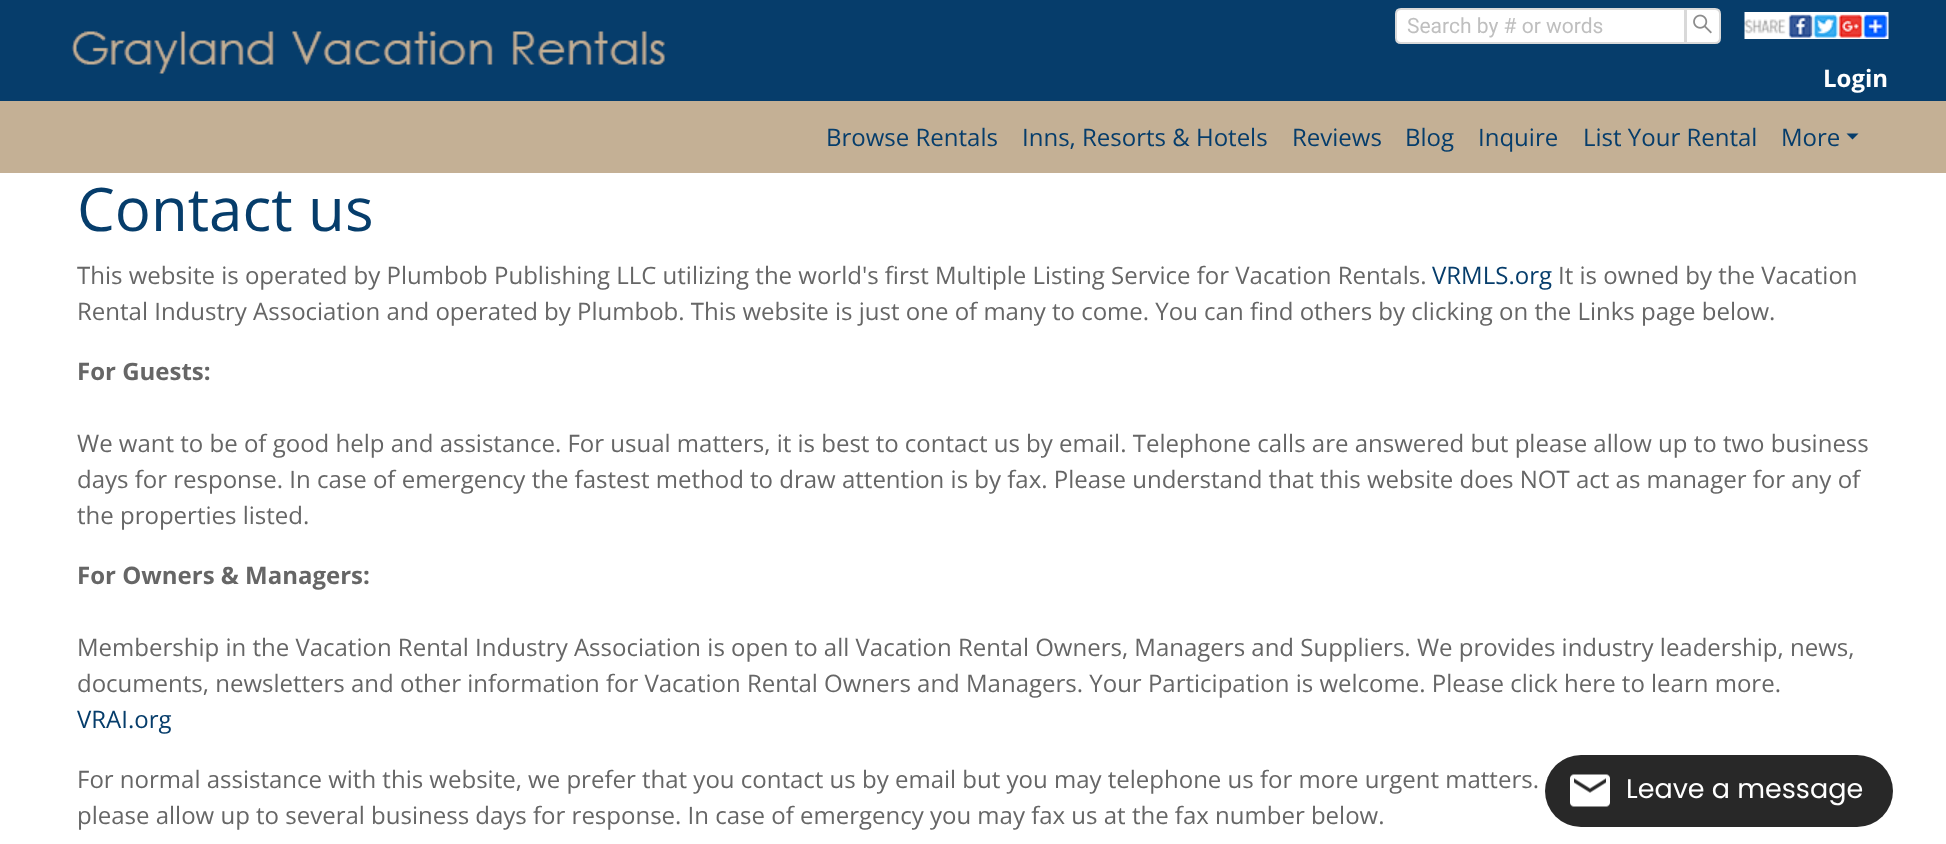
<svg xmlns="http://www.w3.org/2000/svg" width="1946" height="844">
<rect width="100%" height="100%" fill="#fff"/>
<rect width="1946" height="101" fill="#063d6b"/>
<image x="71" y="31" width="594" height="43" href="media/1.png"/>
<path d="M1401 9h284v34h-284c-3 0-5-2-5-5v-24c0-3 2-5 5-5z" fill="#fff" stroke="#d9d9d9" stroke-width="2"/>
<text x="1407" y="33" style="font-family:Roboto;font-size:21px;fill:#bfbfbf">Search by # or words</text>
<path d="M1686 9h29c3 0 5 2 5 5v24c0 3-2 5-5 5h-29z" fill="#fff" stroke="#d9d9d9" stroke-width="2"/>
<image x="1693" y="14" width="19" height="20" href="media/2.png"/>
<image x="1744" y="12" width="145" height="27" href="media/3.png"/>
<text x="1823" y="87" style="font-family:Open Sans;font-size:24px;font-weight:bold;fill:#fff">Login</text>
<rect y="101" width="1946" height="72" fill="#c4b095"/>
<text x="826" y="146" style="font-family:Open Sans;font-size:24px;fill:#063d6b">Browse Rentals</text>
<text x="1022" y="146" style="font-family:Open Sans;font-size:24px;fill:#063d6b">Inns, Resorts &amp; Hotels</text>
<text x="1292" y="146" style="font-family:Open Sans;font-size:24px;fill:#063d6b">Reviews</text>
<text x="1405" y="146" style="font-family:Open Sans;font-size:24px;fill:#063d6b">Blog</text>
<text x="1478" y="146" style="font-family:Open Sans;font-size:24px;fill:#063d6b">Inquire</text>
<text x="1583" y="146" style="font-family:Open Sans;font-size:24px;fill:#063d6b">List Your Rental</text>
<text x="1781" y="146" style="font-family:Open Sans;font-size:24px;fill:#063d6b">More</text>
<path d="M1846.5 133.5h12l-6 6z" fill="#063d6b"/>
<text x="77" y="231" style="font-family:Open Sans;font-size:60px;fill:#063d6b">Contact us</text>
<text x="77" y="284" style="font-family:Open Sans;font-size:24px;fill:#666">This website is operated by Plumbob Publishing LLC utilizing the world's first Multiple Listing Service for Vacation Rentals.</text>
<text x="1432" y="284" style="font-family:Open Sans;font-size:24px;fill:#063d6b">VRMLS.org</text>
<text x="1558" y="284" style="font-family:Open Sans;font-size:24px;fill:#666">It is owned by the Vacation</text>
<text x="77" y="320" style="font-family:Open Sans;font-size:24px;fill:#666">Rental Industry Association and operated by Plumbob. This website is just one of many to come. You can find others by clicking on the Links page below.</text>
<text x="77" y="380" style="font-family:Open Sans;font-size:24px;font-weight:bold;fill:#666">For Guests:</text>
<text x="77" y="452" style="font-family:Open Sans;font-size:24px;fill:#666">We want to be of good help and assistance. For usual matters, it is best to contact us by email. Telephone calls are answered but please allow up to two business</text>
<text x="77" y="488" style="font-family:Open Sans;font-size:24px;fill:#666">days for response. In case of emergency the fastest method to draw attention is by fax. Please understand that this website does NOT act as manager for any of</text>
<text x="77" y="524" style="font-family:Open Sans;font-size:24px;fill:#666">the properties listed.</text>
<text x="77" y="584" style="font-family:Open Sans;font-size:24px;font-weight:bold;fill:#666">For Owners &amp; Managers:</text>
<text x="77" y="656" style="font-family:Open Sans;font-size:24px;fill:#666">Membership in the Vacation Rental Industry Association is open to all Vacation Rental Owners, Managers and Suppliers. We provides industry leadership, news,</text>
<text x="77" y="692" style="font-family:Open Sans;font-size:24px;fill:#666">documents, newsletters and other information for Vacation Rental Owners and Managers. Your Participation is welcome. Please click here to learn more.</text>
<text x="77" y="728" style="font-family:Open Sans;font-size:24px;fill:#063d6b">VRAI.org</text>
<text x="77" y="788" style="font-family:Open Sans;font-size:24px;fill:#666">For normal assistance with this website, we prefer that you contact us by email but you may telephone us for more urgent matters.</text>
<text x="77" y="824" style="font-family:Open Sans;font-size:24px;fill:#666">please allow up to several business days for response. In case of emergency you may fax us at the fax number below.</text>
<rect x="1545" y="755" width="348" height="72" rx="36" fill="#282828"/>
<image x="1570" y="774" width="40" height="33" href="media/4.png"/>
<text x="1626" y="798" style="font-family:Poppins;font-size:27px;fill:#fff">Leave a message</text>
</svg>
